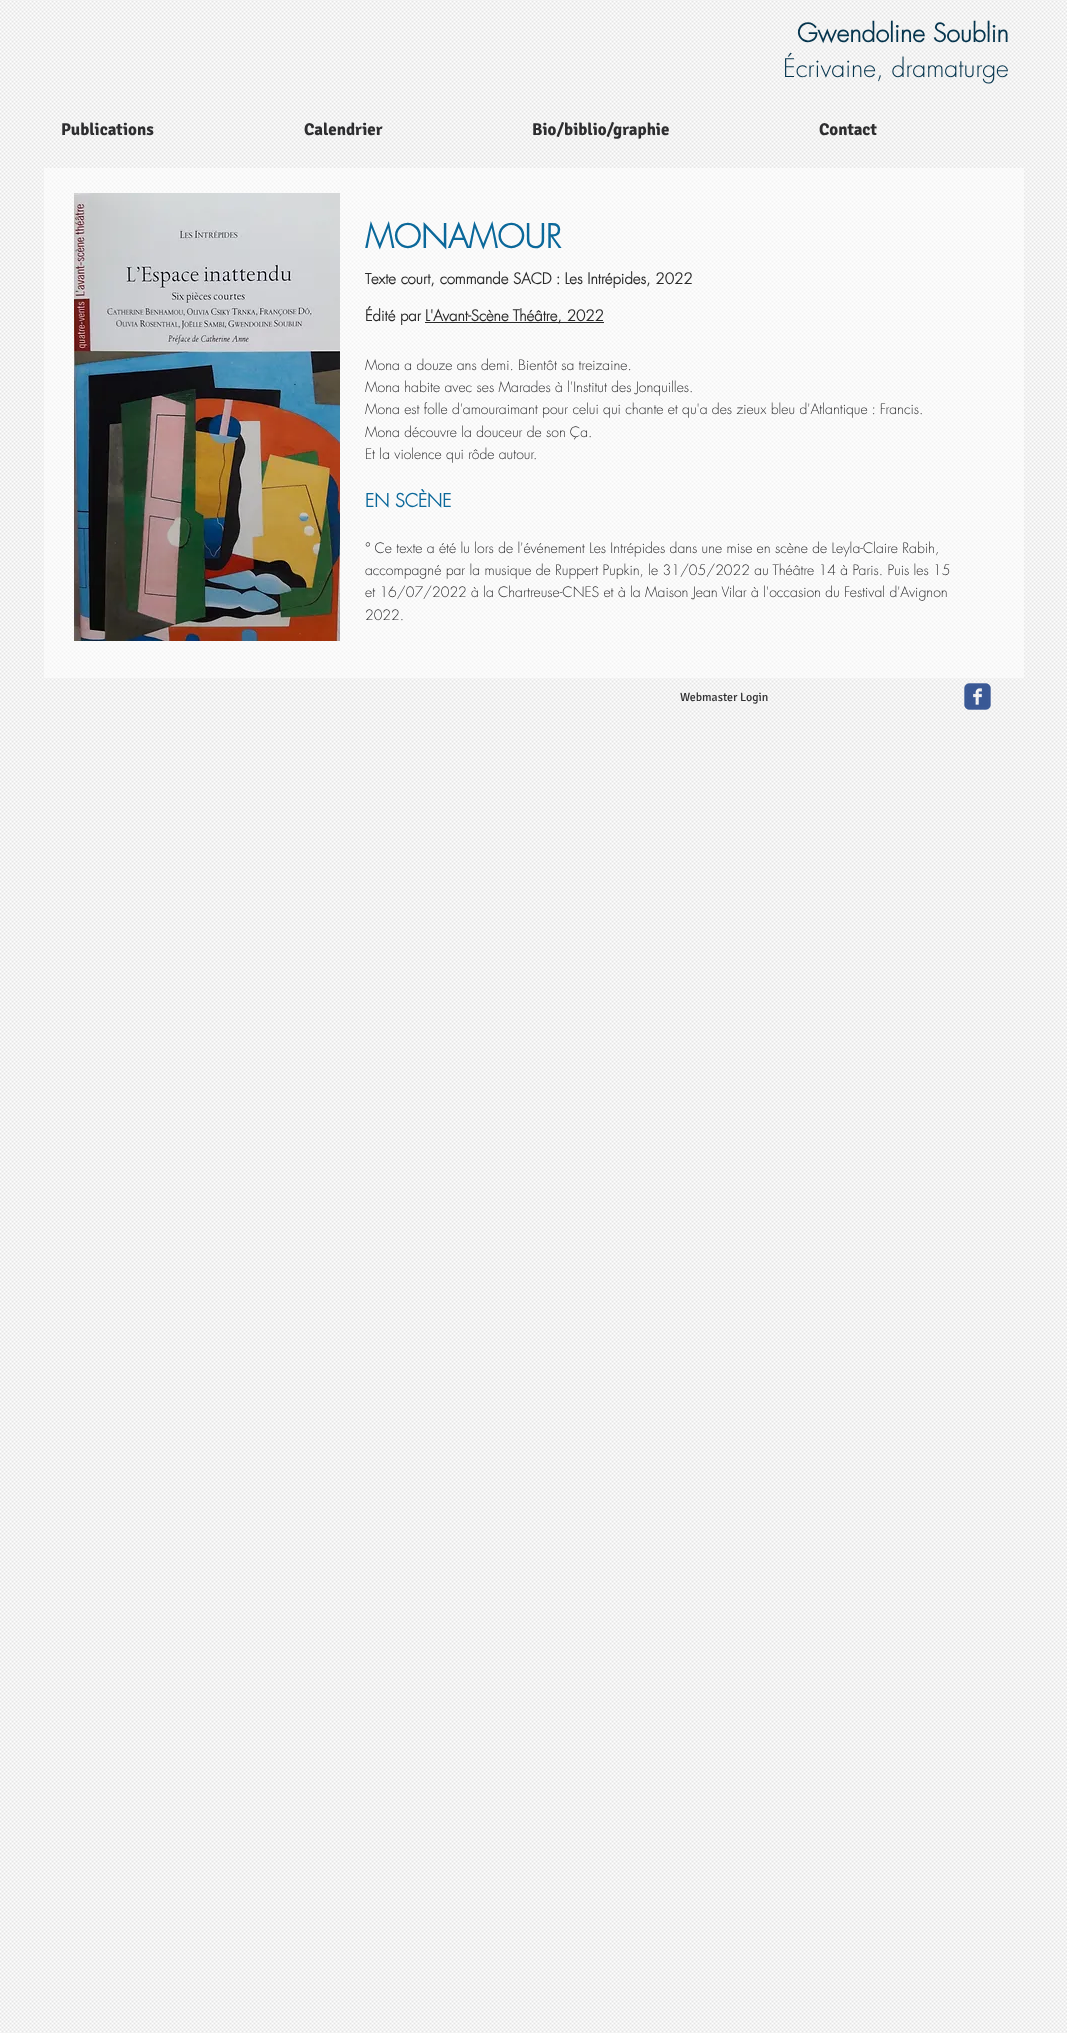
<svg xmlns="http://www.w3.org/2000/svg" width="1067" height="2033">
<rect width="100%" height="100%" fill="#fff"/>
<image x="0" y="0" width="1067" height="2033" href="media/1.png"/>
<text x="797" y="42" style="font-family:futura;font-size:25px;font-weight:bold;fill:#05344d">Gwendoline Soublin</text>
<text x="783" y="77" style="font-family:futura;font-size:25px;font-weight:300;fill:#05344d">Écrivaine, dramaturge</text>
<text x="61" y="135" style="font-family:Signika;font-size:17px;font-weight:bold;fill:#2d2d2f">Publications</text>
<text x="304" y="135" style="font-family:Signika;font-size:17px;font-weight:bold;fill:#2d2d2f">Calendrier</text>
<text x="532" y="135" style="font-family:Signika;font-size:17px;font-weight:bold;fill:#2d2d2f">Bio/biblio/graphie</text>
<text x="819" y="135" style="font-family:Signika;font-size:17px;font-weight:bold;fill:#2d2d2f">Contact</text>
<rect x="44" y="168" width="980" height="510" fill="#ffffff8c"/>
<image x="74" y="193" width="266" height="448" href="media/2.png"/>
<text x="365" y="248" style="font-family:futura;font-size:32px;font-weight:bold;fill:#0b689a">MONAMOUR</text>
<text x="365" y="284" style="font-family:futura;font-size:14px;font-weight:bold;fill:#292929">T</text>
<text x="371" y="284" style="font-family:futura;font-size:15px;font-weight:bold;fill:#292929">exte court, commande SACD : Les Intrépides, 2022</text>
<text x="365" y="321" style="font-family:futura;font-size:15px;font-weight:bold;fill:#292929">Édité par</text>
<rect x="425" y="322" width="179" height="1" fill="#292929"/>
<text x="425" y="321" style="font-family:futura;font-size:15px;font-weight:bold;fill:#292929">L'Avant-Scène Théâtre, 2022</text>
<text x="365" y="370" style="font-family:futura;font-size:14px;font-weight:300;fill:#2d2d2f">Mona a douze ans demi. Bientôt sa treizaine.</text>
<text x="365" y="392" style="font-family:futura;font-size:14px;font-weight:300;fill:#2d2d2f">Mona habite avec ses Marades à l'Institut des Jonquilles.</text>
<text x="365" y="414" style="font-family:futura;font-size:14px;font-weight:300;fill:#2d2d2f">Mona est folle d'amouraimant pour celui qui chante et qu'a des zieux bleu d'Atlantique : Francis.</text>
<text x="365" y="437" style="font-family:futura;font-size:14px;font-weight:300;fill:#2d2d2f">Mona découvre la douceur de son Ça.</text>
<text x="365" y="459" style="font-family:futura;font-size:14px;font-weight:300;fill:#2d2d2f">Et la violence qui rôde autour.</text>
<text x="365" y="507" style="font-family:futura;font-size:18px;font-weight:bold;fill:#0b689a">EN SCÈNE</text>
<text x="365" y="553" style="font-family:futura;font-size:14px;font-weight:300;fill:#2d2d2f">° Ce texte a été lu lors de l'événement Les Intrépides dans une mise en scène de Leyla-Claire Rabih,</text>
<text x="365" y="575" style="font-family:futura;font-size:14px;font-weight:300;fill:#2d2d2f">accompagné par la musique de Ruppert Pupkin, le 31/05/2022 au Théâtre 14 à Paris. Puis les 15</text>
<text x="365" y="597" style="font-family:futura;font-size:14px;font-weight:300;fill:#2d2d2f">et 16/07/2022 à la Chartreuse-CNES et à la Maison Jean Vilar à l'occasion du Festival d'Avignon</text>
<text x="365" y="620" style="font-family:futura;font-size:14px;font-weight:300;fill:#2d2d2f">2022.</text>
<text x="680" y="701" style="font-family:Signika;font-size:12px;fill:#2d2d2f">Webmaster Login</text>
<image x="964" y="683" width="27" height="27" href="media/3.png"/>
</svg>
